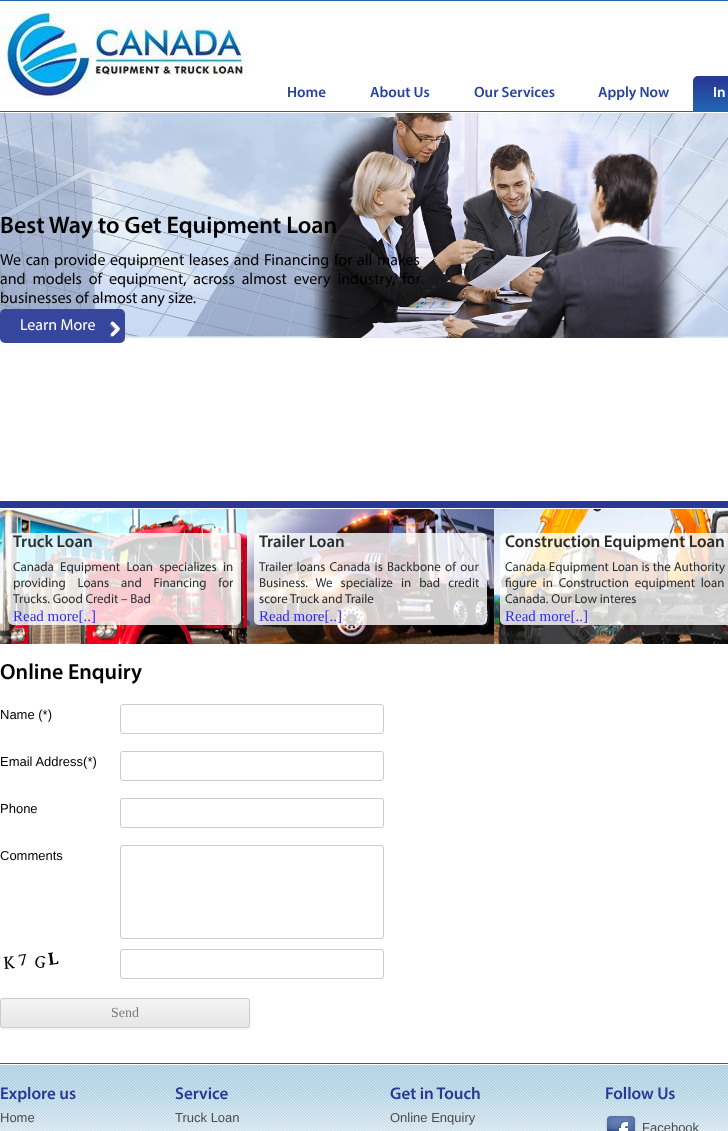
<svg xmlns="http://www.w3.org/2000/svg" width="728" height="1131">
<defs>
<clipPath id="clip1"><rect y="998" width="250" height="30" rx="3"/></clipPath>
<linearGradient id="g1" gradientUnits="userSpaceOnUse" x1="125" y1="999" x2="125" y2="1027"><stop offset="0" stop-color="#f4f4f4"/><stop offset="1" stop-color="#e6e6e6"/></linearGradient>
</defs>
<rect width="100%" height="100%" fill="#fff"/>
<rect width="728" height="1" fill="#2264b1"/>
<rect y="111" width="728" height="1" fill="#2264b1"/>
<image x="0" y="11" width="248" height="87" href="media/1.png"/>
<text x="287" y="97" style="font-family:Myriad;font-size:15px;font-weight:600;fill:#27449d">Home</text>
<text x="370" y="97" style="font-family:Myriad;font-size:15px;font-weight:600;fill:#27449d">About Us</text>
<text x="474" y="97" style="font-family:Myriad;font-size:15px;font-weight:600;fill:#27449d">Our Services</text>
<text x="598" y="97" style="font-family:Myriad;font-size:15px;font-weight:600;fill:#27449d">Apply Now</text>
<image x="693" y="76" width="35" height="35" href="media/2.png"/>
<text x="713" y="97" style="font-family:Myriad;font-size:15px;font-weight:600;fill:#fff">In</text>
<image x="0" y="113" width="728" height="225" href="media/3.png"/>
<rect y="501" width="728" height="7" fill="#293896"/>
<text x="0" y="233" style="font-family:Myriad;font-size:24px;font-weight:600;fill:#000">Best Way to Get Equipment Loan</text>
<text x="0" y="265" word-spacing="1.25" style="font-family:Myriad;font-size:16px;fill:#000">We can provide equipment leases and Financing for all makes</text>
<text x="0" y="284" word-spacing="3.5" style="font-family:Myriad;font-size:16px;fill:#000">and models of equipment, across almost every industry, for</text>
<text x="0" y="303" style="font-family:Myriad;font-size:16px;fill:#000">businesses of almost any size.</text>
<rect y="309" width="125" height="34" rx="5" fill="#37469d"/>
<text x="20" y="330" style="font-family:Myriad;font-size:16px;fill:#fff">Learn More</text>
<image x="109" y="321" width="11" height="16" href="media/4.png"/>
<image x="0" y="509" width="247" height="116" href="media/5.png"/>
<rect y="1063" width="728" height="1" fill="#2264b1"/>
<image x="0" y="509" width="728" height="135" href="media/6.png"/>
<rect x="8" y="533" width="233" height="92" rx="5" fill="#ffffffcc"/>
<text x="13" y="547" style="font-family:Myriad;font-size:17px;font-weight:600;fill:#2b3031">Truck Loan</text>
<text x="13" y="571" word-spacing="3.5" style="font-family:Myriad;font-size:13px;fill:#2b3031">Canada Equipment Loan specializes in</text>
<text x="13" y="587" word-spacing="9" style="font-family:Myriad;font-size:13px;fill:#2b3031">providing Loans and Financing for</text>
<text x="13" y="603" style="font-family:Myriad;font-size:13px;fill:#2b3031">Trucks. Good Credit – Bad</text>
<text x="13" y="621" style="font-family:Liberation Serif;font-size:15px;fill:#2f2deb">Read more[..]</text>
<rect x="254" y="533" width="233" height="92" rx="5" fill="#ffffffcc"/>
<text x="259" y="547" style="font-family:Myriad;font-size:17px;font-weight:600;fill:#2b3031">Trailer Loan</text>
<text x="259" y="571" word-spacing="1.5" style="font-family:Myriad;font-size:13px;fill:#2b3031">Trailer loans Canada is Backbone of our</text>
<text x="259" y="587" word-spacing="5.25" style="font-family:Myriad;font-size:13px;fill:#2b3031">Business. We specialize in bad credit</text>
<text x="259" y="603" style="font-family:Myriad;font-size:13px;fill:#2e2c2b">score Truck and Traile</text>
<text x="259" y="621" style="font-family:Liberation Serif;font-size:15px;fill:#2f2deb">Read more[..]</text>
<rect x="500" y="533" width="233" height="92" rx="5" fill="#ffffffcc"/>
<text x="505" y="547" style="font-family:Myriad;font-size:17px;font-weight:600;fill:#2e2c2b">Construction Equipment Loan</text>
<text x="505" y="571" word-spacing="0.25" style="font-family:Myriad;font-size:13px;fill:#2b3031">Canada Equipment Loan is the Authority</text>
<text x="505" y="587" word-spacing="3" style="font-family:Myriad;font-size:13px;fill:#2e2c2b">figure in Construction equipment loan</text>
<text x="505" y="603" style="font-family:Myriad;font-size:13px;fill:#2e2c2b">Canada. Our Low interes</text>
<text x="505" y="621" style="font-family:Liberation Serif;font-size:15px;fill:#2f2deb">Read more[..]</text>
<text x="0" y="679" style="font-family:Myriad;font-size:22px;font-weight:600;fill:#000">Online Enquiry</text>
<text x="0" y="719" style="font-family:Liberation Sans;font-size:13px;fill:#000">Name (*)</text>
<rect x="120.5" y="704.5" width="263" height="29" rx="2.5" fill="none" stroke="#ccc"/>
<text x="0" y="766" style="font-family:Liberation Sans;font-size:13px;fill:#000">Email Address(*)</text>
<rect x="120.5" y="751.5" width="263" height="29" rx="2.5" fill="none" stroke="#ccc"/>
<text x="0" y="813" style="font-family:Liberation Sans;font-size:13px;fill:#000">Phone</text>
<rect x="120.5" y="798.5" width="263" height="29" rx="2.5" fill="none" stroke="#ccc"/>
<text x="0" y="860" style="font-family:Liberation Sans;font-size:13px;fill:#000">Comments</text>
<rect x="120.5" y="845.5" width="263" height="93" rx="2.5" fill="none" stroke="#ccc"/>
<image x="3" y="952" width="56" height="17" href="media/7.png"/>
<rect x="120.5" y="949.5" width="263" height="29" rx="2.5" fill="none" stroke="#ccc"/>
<rect y="999" width="250" height="30" rx="3" fill="#4040401a" filter="blur(1px)"/>
<g clip-path="url(#clip1)">
<rect y="999" width="250" height="28" fill="url(#g1)"/>
</g>
<rect x="0.5" y="998.5" width="249" height="29" rx="2.5" fill="none" stroke="#ccc"/>
<text x="111" y="1017" style="font-family:Liberation Serif;font-size:14px;fill:#7c7c7c">Send</text>
<image x="0" y="1065" width="728" height="66" href="media/8.png"/>
<text x="0" y="1099" style="font-family:Myriad;font-size:17px;font-weight:600;fill:#293896">Explore us</text>
<text x="0" y="1122" style="font-family:Liberation Sans;font-size:13px;fill:#4c4c4c">Home</text>
<text x="175" y="1099" style="font-family:Myriad;font-size:17px;font-weight:600;fill:#293896">Service</text>
<text x="175" y="1122" style="font-family:Liberation Sans;font-size:13px;fill:#4c4c4c">Truck Loan</text>
<text x="390" y="1099" style="font-family:Myriad;font-size:17px;font-weight:600;fill:#293896">Get in Touch</text>
<text x="390" y="1122" style="font-family:Liberation Sans;font-size:13px;fill:#4c4c4c">Online Enquiry</text>
<text x="605" y="1099" style="font-family:Myriad;font-size:17px;font-weight:600;fill:#293896">Follow Us</text>
<image x="605" y="1115" width="32" height="16" href="media/9.png"/>
<text x="642" y="1132" style="font-family:Liberation Sans;font-size:13px;fill:#4c4c4c">Facebook</text>
</svg>
